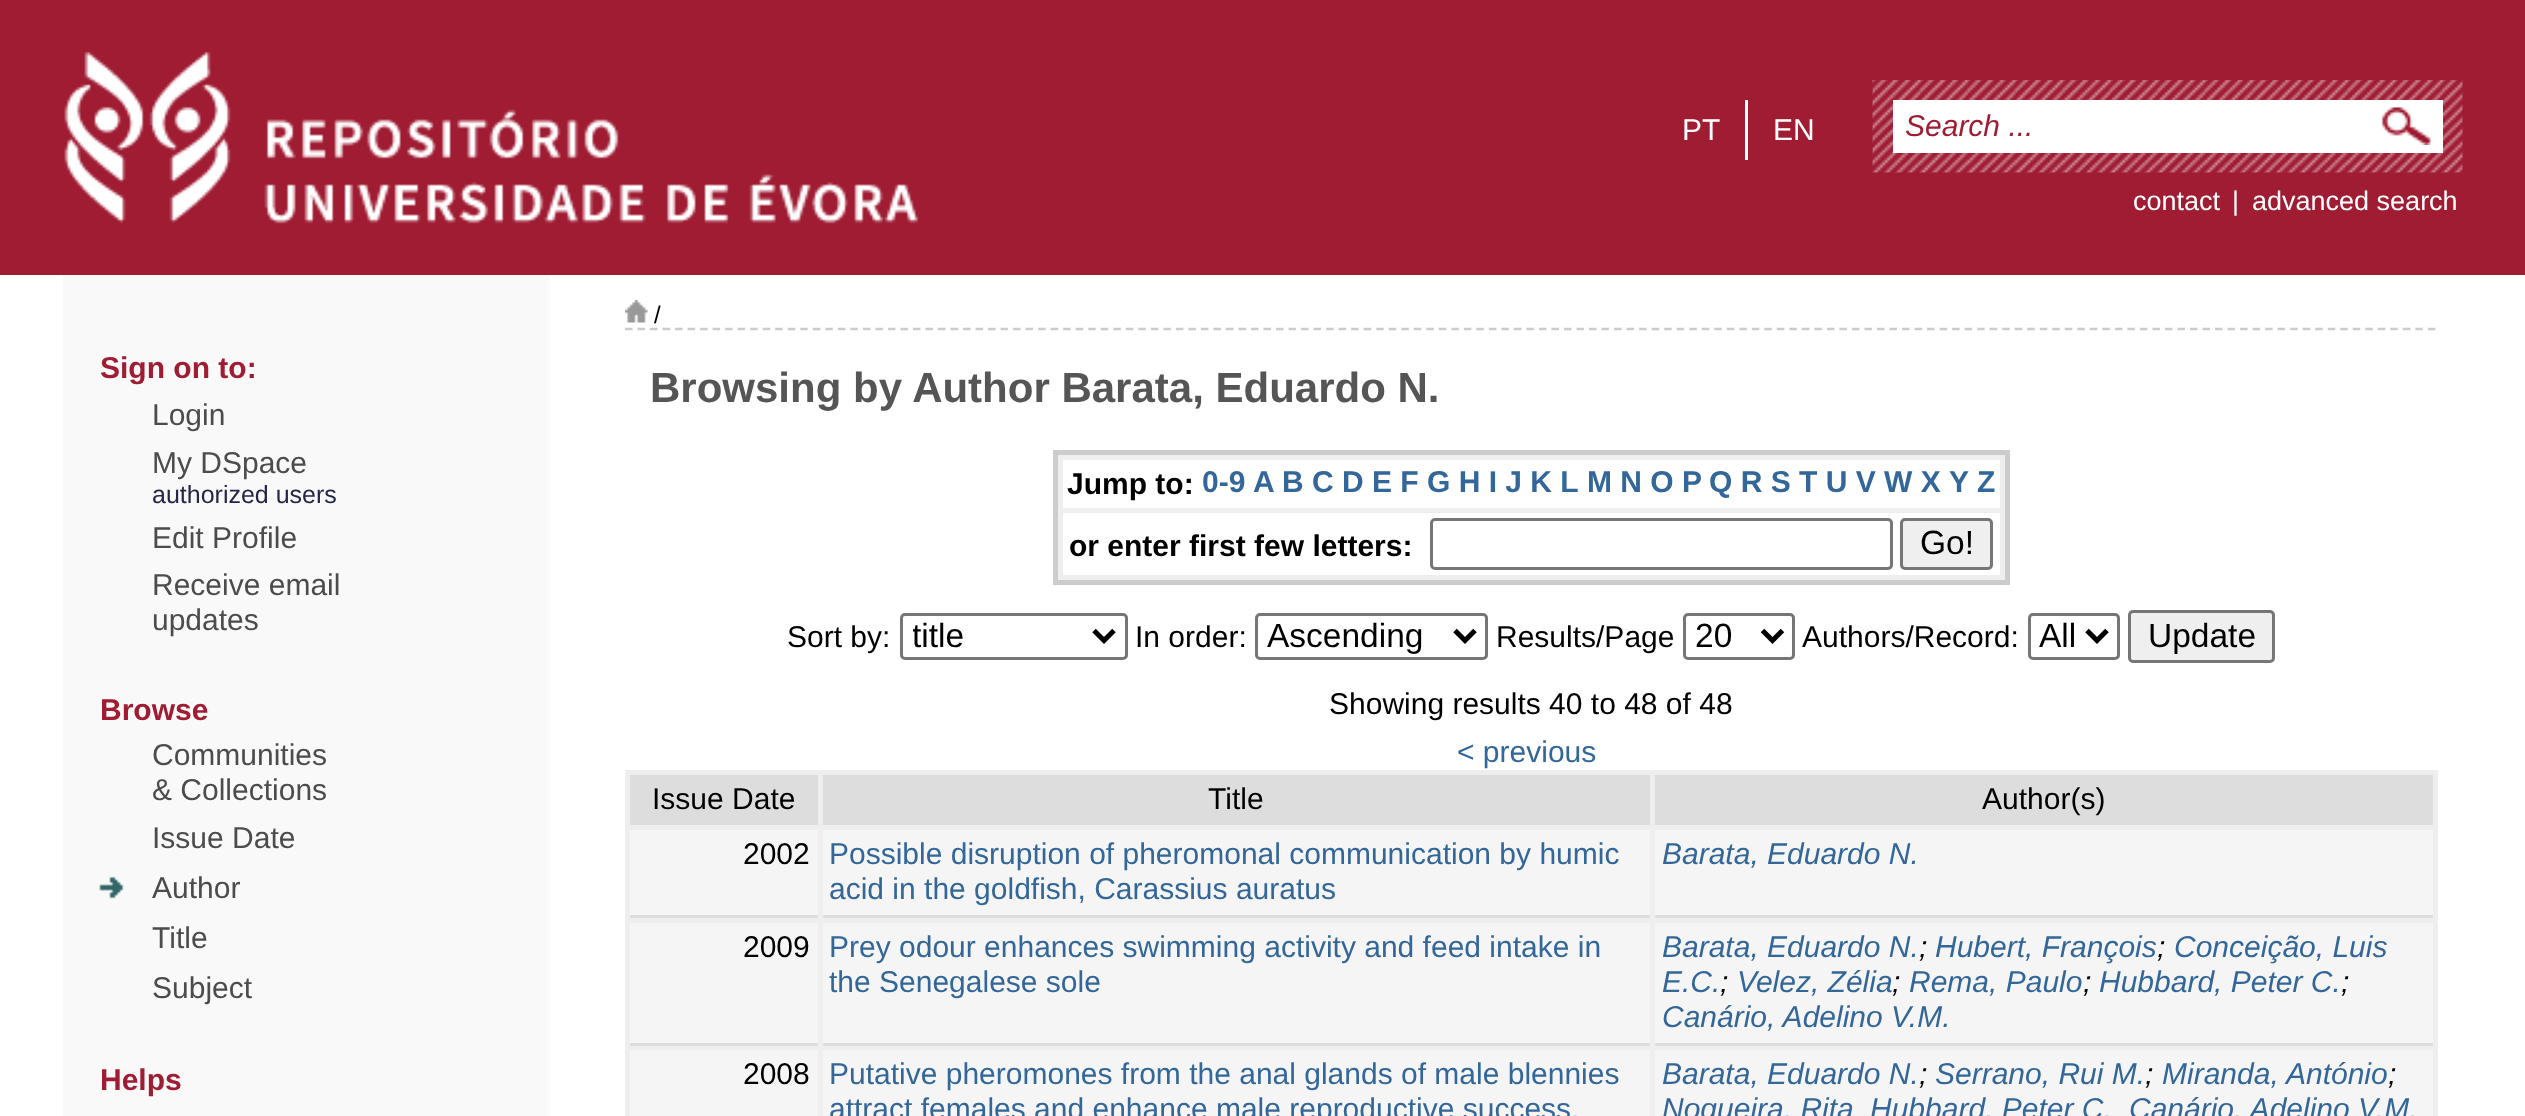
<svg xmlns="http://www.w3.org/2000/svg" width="2525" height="1116">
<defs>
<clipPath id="clip1"><rect x="913" y="615" width="172" height="43"/></clipPath>
</defs>
<rect width="100%" height="100%" fill="#fff"/>
<rect width="2525" height="275" fill="#9f1c33"/>
<image x="64" y="51" width="855" height="173" href="media/1.png"/>
<text x="1682" y="140" style="font-family:Liberation Sans;font-size:30px;fill:#fff">PT</text>
<rect x="1745" y="100" width="3" height="60" fill="#fff"/>
<text x="1773" y="140" style="font-family:Liberation Sans;font-size:30px;fill:#fff">EN</text>
<image x="1872" y="80" width="591" height="93" href="media/2.png"/>
<rect x="1893" y="100" width="550" height="53" fill="#fff"/>
<image x="2381" y="107" width="50" height="38" href="media/3.png"/>
<text x="1905" y="136" style="font-family:Liberation Sans;font-size:30px;font-style:italic;fill:#9f1c33">Search ...</text>
<text x="2133" y="210" style="font-family:Liberation Sans;font-size:27px;fill:#fff">contact</text>
<text x="2232" y="210" style="font-family:Liberation Sans;font-size:27px;fill:#fff">|</text>
<text x="2252" y="210" style="font-family:Liberation Sans;font-size:27px;fill:#fff">advanced search</text>
<rect x="63" y="275" width="487" height="841" fill="#f9f9f9"/>
<text x="100" y="378" style="font-family:Liberation Sans;font-size:30px;font-weight:bold;fill:#9f1c33">Sign on to:</text>
<text x="152" y="425" style="font-family:Liberation Sans;font-size:30px;fill:#4c4c4c">Login</text>
<text x="152" y="473" style="font-family:Liberation Sans;font-size:30px;fill:#4c4c4c">My DSpace</text>
<text x="152" y="503" style="font-family:Liberation Sans;font-size:25px;fill:#252645">authorized users</text>
<text x="152" y="548" style="font-family:Liberation Sans;font-size:30px;fill:#4c4c4c">Edit Profile</text>
<text x="152" y="595" style="font-family:Liberation Sans;font-size:30px;fill:#4c4c4c">Receive email</text>
<text x="152" y="630" style="font-family:Liberation Sans;font-size:30px;fill:#4c4c4c">updates</text>
<text x="100" y="720" style="font-family:Liberation Sans;font-size:30px;font-weight:bold;fill:#9f1c33">Browse</text>
<text x="152" y="765" style="font-family:Liberation Sans;font-size:30px;fill:#4c4c4c">Communities</text>
<text x="152" y="800" style="font-family:Liberation Sans;font-size:30px;fill:#4c4c4c">&amp; Collections</text>
<text x="152" y="848" style="font-family:Liberation Sans;font-size:30px;fill:#4c4c4c">Issue Date</text>
<image x="99" y="876" width="25" height="23" href="media/4.png"/>
<text x="152" y="898" style="font-family:Liberation Sans;font-size:30px;fill:#4c4c4c">Author</text>
<text x="152" y="948" style="font-family:Liberation Sans;font-size:30px;fill:#4c4c4c">Title</text>
<text x="152" y="998" style="font-family:Liberation Sans;font-size:30px;fill:#4c4c4c">Subject</text>
<text x="100" y="1090" style="font-family:Liberation Sans;font-size:30px;font-weight:bold;fill:#9f1c33">Helps</text>
<path d="M625 329h1812.5" fill="none" stroke="#ccc" stroke-width="2.5" stroke-dasharray="7.5 5.02"/>
<image x="625" y="300" width="23" height="23" href="media/5.png"/>
<text x="654" y="323" style="font-family:Liberation Sans;font-size:24px;fill:#000">/</text>
<text x="650" y="402" style="font-family:Liberation Sans;font-size:42px;font-weight:bold;fill:#555">Browsing by Author Barata, Eduardo N.</text>
<rect x="1053" y="450" width="957" height="135" fill="#ccc"/>
<rect x="1058" y="455" width="947" height="125" fill="#eee"/>
<rect x="1063" y="460" width="937" height="48" fill="#fff"/>
<text x="1067" y="494" style="font-family:Liberation Sans;font-size:30px;font-weight:bold;fill:#000">Jump to:</text>
<text x="1202" y="492" style="font-family:Liberation Sans;font-size:30px;font-weight:bold;fill:#369">0-9</text>
<text x="1253" y="492" style="font-family:Liberation Sans;font-size:30px;font-weight:bold;fill:#369">A</text>
<text x="1282" y="492" style="font-family:Liberation Sans;font-size:30px;font-weight:bold;fill:#369">B C D E F G H I J K L</text>
<text x="1587" y="492" style="font-family:Liberation Sans;font-size:30px;font-weight:bold;fill:#369">M N O P</text>
<text x="1709" y="492" style="font-family:Liberation Sans;font-size:30px;font-weight:bold;fill:#369">Q R S T U V W X</text>
<text x="1949" y="492" style="font-family:Liberation Sans;font-size:30px;font-weight:bold;fill:#369">Y</text>
<text x="1977" y="492" style="font-family:Liberation Sans;font-size:30px;font-weight:bold;fill:#369">Z</text>
<rect x="1063" y="513" width="937" height="62" fill="#fff"/>
<text x="1069" y="556" style="font-family:Liberation Sans;font-size:30px;font-weight:bold;fill:#000">or enter first few letters:</text>
<rect x="1431.5" y="519.5" width="460" height="49" rx="3.5" fill="none" stroke="#767676" stroke-width="3"/>
<rect x="1901.5" y="519.5" width="90" height="49" rx="3.5" fill="#efefef" stroke="#767676" stroke-width="3"/>
<text x="1920" y="554" style="font-family:Liberation Sans;font-size:33.5px;fill:#000">Go!</text>
<text x="787" y="647" style="font-family:Liberation Sans;font-size:30px;fill:#000">Sort by:</text>
<rect x="901.5" y="614.5" width="225" height="44" rx="3.5" fill="none" stroke="#767676" stroke-width="3"/>
<path d="M1094 630.5l10 10l10-10" fill="none" stroke="#000" stroke-width="5"/>
<g clip-path="url(#clip1)">
<text x="912" y="647" style="font-family:Liberation Sans;font-size:33.5px;fill:#000">title</text>
</g>
<text x="1135" y="647" style="font-family:Liberation Sans;font-size:30px;fill:#000">In order:</text>
<rect x="1256.5" y="614.5" width="230" height="44" rx="3.5" fill="none" stroke="#767676" stroke-width="3"/>
<path d="M1455 630.5l10 10l10-10" fill="none" stroke="#000" stroke-width="5"/>
<text x="1267" y="647" style="font-family:Liberation Sans;font-size:33.5px;fill:#000">Ascending</text>
<text x="1496" y="647" style="font-family:Liberation Sans;font-size:30px;fill:#000">Results/Page</text>
<rect x="1684.5" y="614.5" width="109" height="44" rx="3.5" fill="none" stroke="#767676" stroke-width="3"/>
<path d="M1762.5 630.5l10 10l10-10" fill="none" stroke="#000" stroke-width="5"/>
<text x="1695" y="647" style="font-family:Liberation Sans;font-size:33.5px;fill:#000">20</text>
<text x="1802" y="647" style="font-family:Liberation Sans;font-size:30px;fill:#000">Authors/Record:</text>
<rect x="2029.5" y="614.5" width="89" height="44" rx="3.5" fill="none" stroke="#767676" stroke-width="3"/>
<path d="M2087 630.5l10 10l10-10" fill="none" stroke="#000" stroke-width="5"/>
<text x="2039" y="647" style="font-family:Liberation Sans;font-size:33.5px;fill:#000">All</text>
<rect x="2129.5" y="611.5" width="144" height="50" rx="3.5" fill="#efefef" stroke="#767676" stroke-width="3"/>
<text x="2148" y="647" style="font-family:Liberation Sans;font-size:33.5px;fill:#000">Update</text>
<text x="1329" y="714" style="font-family:Liberation Sans;font-size:30px;fill:#000">Showing results 40 to 48 of 48</text>
<text x="1457" y="762" style="font-family:Liberation Sans;font-size:30px;fill:#369">&lt; previous</text>
<rect x="625" y="770" width="1813" height="346" fill="#eee"/>
<rect x="630" y="775" width="188" height="50" fill="#ddd"/>
<text x="652" y="809" style="font-family:Liberation Sans;font-size:30px;fill:#000">Issue Date</text>
<rect x="823" y="775" width="827" height="50" fill="#ddd"/>
<text x="1208" y="809" style="font-family:Liberation Sans;font-size:30px;fill:#000">Title</text>
<rect x="1655" y="775" width="778" height="50" fill="#ddd"/>
<text x="1982" y="809" style="font-family:Liberation Sans;font-size:30px;fill:#000">Author(s)</text>
<rect x="630" y="830" width="188" height="85" fill="#f5f5f5"/>
<rect x="630" y="915" width="188" height="3" fill="#ddd"/>
<text x="743" y="864" style="font-family:Liberation Sans;font-size:30px;fill:#000">2002</text>
<rect x="823" y="830" width="827" height="85" fill="#f5f5f5"/>
<rect x="823" y="915" width="827" height="3" fill="#ddd"/>
<text x="829" y="864" style="font-family:Liberation Sans;font-size:30px;fill:#369">Possible disruption of pheromonal communication by humic</text>
<text x="829" y="899" style="font-family:Liberation Sans;font-size:30px;fill:#369">acid in the goldfish, Carassius auratus</text>
<rect x="1655" y="830" width="778" height="85" fill="#f5f5f5"/>
<rect x="1655" y="915" width="778" height="3" fill="#ddd"/>
<text x="1662" y="864" style="font-family:Liberation Sans;font-size:30px;font-style:italic;fill:#369">Barata, Eduardo N.</text>
<rect x="630" y="923" width="188" height="120" fill="#f5f5f5"/>
<rect x="630" y="1043" width="188" height="3" fill="#ddd"/>
<text x="743" y="957" style="font-family:Liberation Sans;font-size:30px;fill:#000">2009</text>
<rect x="823" y="923" width="827" height="120" fill="#f5f5f5"/>
<rect x="823" y="1043" width="827" height="3" fill="#ddd"/>
<text x="829" y="957" style="font-family:Liberation Sans;font-size:30px;fill:#369">Prey odour enhances swimming activity and feed intake in</text>
<text x="829" y="992" style="font-family:Liberation Sans;font-size:30px;fill:#369">the Senegalese sole</text>
<rect x="1655" y="923" width="778" height="120" fill="#f5f5f5"/>
<rect x="1655" y="1043" width="778" height="3" fill="#ddd"/>
<text x="1662" y="957" style="font-family:Liberation Sans;font-size:30px;font-style:italic;fill:#369">Barata, Eduardo N.</text>
<text x="1919" y="957" style="font-family:Liberation Sans;font-size:30px;font-style:italic;fill:#000">;</text>
<text x="1935" y="957" style="font-family:Liberation Sans;font-size:30px;font-style:italic;fill:#369">Hubert, François</text>
<text x="2157" y="957" style="font-family:Liberation Sans;font-size:30px;font-style:italic;fill:#000">;</text>
<text x="2174" y="957" style="font-family:Liberation Sans;font-size:30px;font-style:italic;fill:#369">Conceição, Luis</text>
<text x="1662" y="992" style="font-family:Liberation Sans;font-size:30px;font-style:italic;fill:#369">E.C.</text>
<text x="1720" y="992" style="font-family:Liberation Sans;font-size:30px;font-style:italic;fill:#000">;</text>
<text x="1737" y="992" style="font-family:Liberation Sans;font-size:30px;font-style:italic;fill:#369">Velez, Zélia</text>
<text x="1892" y="992" style="font-family:Liberation Sans;font-size:30px;font-style:italic;fill:#000">;</text>
<text x="1909" y="992" style="font-family:Liberation Sans;font-size:30px;font-style:italic;fill:#369">Rema, Paulo</text>
<text x="2083" y="992" style="font-family:Liberation Sans;font-size:30px;font-style:italic;fill:#000">;</text>
<text x="2099" y="992" style="font-family:Liberation Sans;font-size:30px;font-style:italic;fill:#369">Hubbard, Peter C.</text>
<text x="2341" y="992" style="font-family:Liberation Sans;font-size:30px;font-style:italic;fill:#000">;</text>
<text x="1662" y="1027" style="font-family:Liberation Sans;font-size:30px;font-style:italic;fill:#369">Canário, Adelino V.M.</text>
<rect x="630" y="1050" width="188" height="66" fill="#f5f5f5"/>
<text x="743" y="1084" style="font-family:Liberation Sans;font-size:30px;fill:#000">2008</text>
<rect x="823" y="1050" width="827" height="66" fill="#f5f5f5"/>
<text x="829" y="1084" style="font-family:Liberation Sans;font-size:30px;fill:#369">Putative pheromones from the anal glands of male blennies</text>
<text x="829" y="1119" style="font-family:Liberation Sans;font-size:30px;fill:#369">attract females and enhance male reproductive success.</text>
<rect x="1655" y="1050" width="778" height="66" fill="#f5f5f5"/>
<text x="1662" y="1084" style="font-family:Liberation Sans;font-size:30px;font-style:italic;fill:#369">Barata, Eduardo N.</text>
<text x="1919" y="1084" style="font-family:Liberation Sans;font-size:30px;font-style:italic;fill:#000">;</text>
<text x="1935" y="1084" style="font-family:Liberation Sans;font-size:30px;font-style:italic;fill:#369">Serrano, Rui M.</text>
<text x="2145" y="1084" style="font-family:Liberation Sans;font-size:30px;font-style:italic;fill:#000">;</text>
<text x="2162" y="1084" style="font-family:Liberation Sans;font-size:30px;font-style:italic;fill:#369">Miranda, António</text>
<text x="2388" y="1084" style="font-family:Liberation Sans;font-size:30px;font-style:italic;fill:#000">;</text>
<text x="1662" y="1119" style="font-family:Liberation Sans;font-size:30px;font-style:italic;fill:#369">Nogueira, Rita</text>
<text x="1870" y="1119" style="font-family:Liberation Sans;font-size:30px;font-style:italic;fill:#369">Hubbard, Peter C.</text>
<text x="2129" y="1119" style="font-family:Liberation Sans;font-size:30px;font-style:italic;fill:#369">Canário, Adelino V.M.</text>
</svg>
